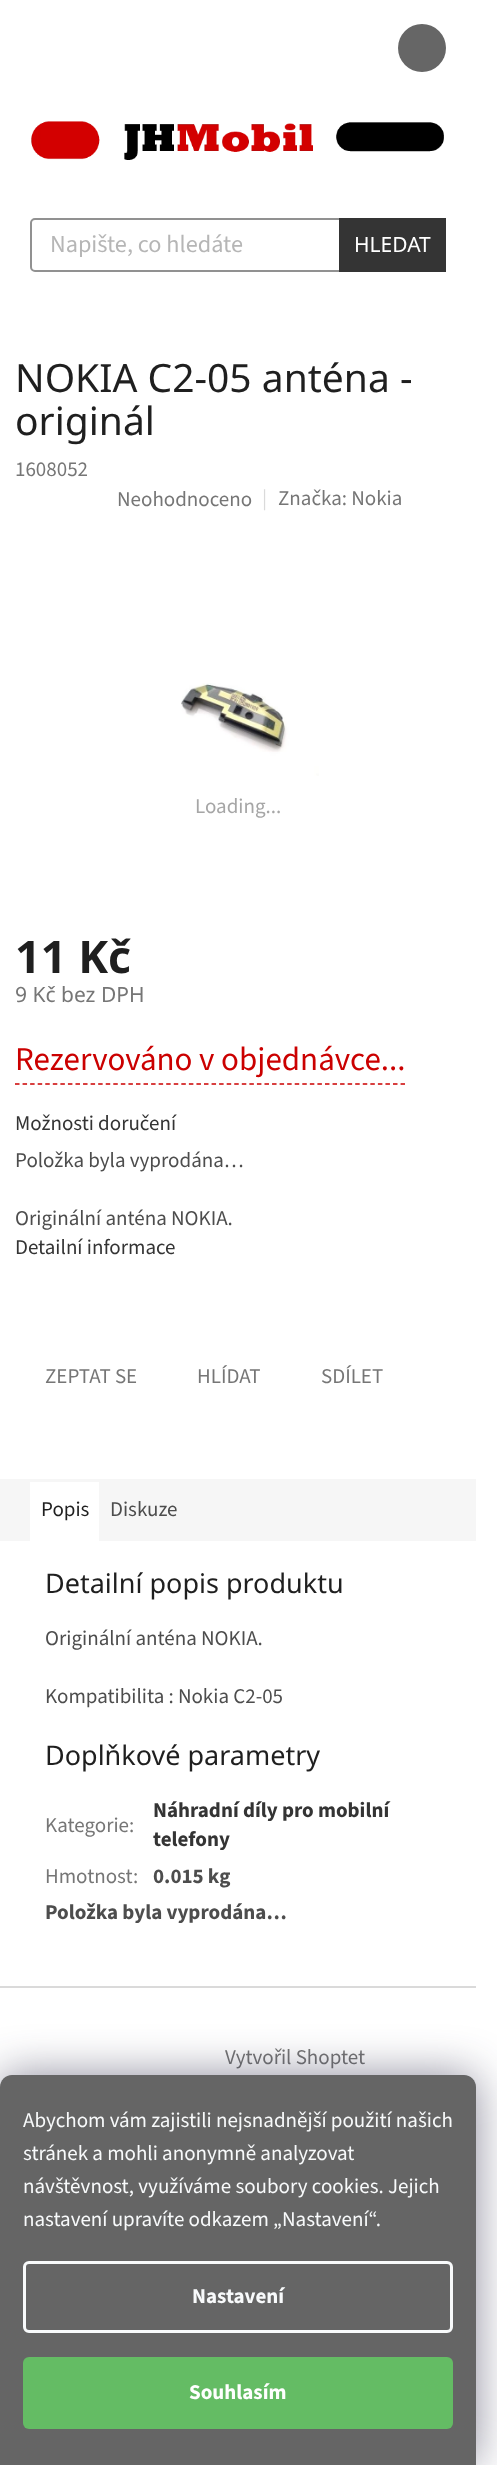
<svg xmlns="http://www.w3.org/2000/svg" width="497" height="2465">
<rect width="100%" height="100%" fill="#fff"/>
<circle cx="422" cy="48" r="24" fill="#666"/>
<image x="31" y="121" width="413" height="39" href="media/1.png"/>
<rect x="31" y="219" width="414" height="52" rx="4" fill="none" stroke="#919191" stroke-width="2"/>
<text x="50" y="252" style="font-family:'Source Sans 3';font-size:24.25px;fill:#b6b6b6">Napište, co hledáte</text>
<rect x="339" y="218" width="107" height="54" fill="#343434"/>
<text x="354" y="252" style="font-family:Noto Sans;font-size:21px;fill:#fff">HLEDAT</text>
<text x="15" y="392" style="font-family:Noto Sans;font-size:39px;fill:#1f1f1f">NOKIA C2-05 anténa -</text>
<text x="15" y="435" style="font-family:Noto Sans;font-size:39px;fill:#1f1f1f">originál</text>
<text x="15" y="476" style="font-family:'Source Sans 3';font-size:21px;fill:#767676">1608052</text>
<text x="117" y="506" style="font-family:'Source Sans 3';font-size:21px;fill:#767676">Neohodnoceno</text>
<text x="262" y="505" style="font-family:'Source Sans 3';font-size:21px;fill:#dadada">|</text>
<text x="278" y="505" style="font-family:'Source Sans 3';font-size:21px;fill:#767676">Značka: Nokia</text>
<image x="181" y="683" width="138" height="93" href="media/2.png"/>
<text x="195" y="813" style="font-family:'Source Sans 3';font-size:21px;fill:#a6a6a6">Loading...</text>
<text x="15" y="973" style="font-family:Noto Sans;font-size:45px;font-weight:bold;fill:#1f1f1f">11 Kč</text>
<text x="15" y="1002" style="font-family:Noto Sans;font-size:21px;fill:#767676">9 Kč bez DPH</text>
<text x="15" y="1070" style="font-family:'Source Sans 3';font-size:33px;fill:#cb0000">Rezervováno v objednávce...</text>
<path d="M15 1084h390" fill="none" stroke="#cb0000" stroke-width="1.5" stroke-dasharray="4.5 3.06"/>
<text x="15" y="1130" style="font-family:'Source Sans 3';font-size:21px;fill:#343434">Možnosti doručení</text>
<text x="15" y="1167" style="font-family:'Source Sans 3';font-size:21px;fill:#4d4d4d">Položka byla vyprodána…</text>
<text x="15" y="1225" style="font-family:'Source Sans 3';font-size:21px;fill:#4d4d4d">Originální anténa NOKIA.</text>
<text x="15" y="1254" style="font-family:'Source Sans 3';font-size:21px;fill:#343434">Detailní informace</text>
<text x="45" y="1383" style="font-family:'Source Sans 3';font-size:21px;fill:#767676">ZEPTAT SE</text>
<text x="197" y="1383" style="font-family:'Source Sans 3';font-size:21px;fill:#767676">HLÍDAT</text>
<text x="321" y="1383" style="font-family:'Source Sans 3';font-size:21px;fill:#767676">SDÍLET</text>
<rect y="1479" width="476" height="62" fill="#f6f6f6"/>
<rect x="30" y="1482" width="69" height="59" fill="#fff"/>
<text x="41" y="1516" style="font-family:'Source Sans 3';font-size:21px;fill:#1f1f1f">Popis</text>
<text x="110" y="1516" style="font-family:'Source Sans 3';font-size:21px;fill:#4d4d4d">Diskuze</text>
<text x="45" y="1593" style="font-family:Noto Sans;font-size:27px;fill:#1f1f1f">Detailní popis produktu</text>
<text x="45" y="1645" style="font-family:'Source Sans 3';font-size:21px;fill:#4d4d4d">Originální anténa NOKIA.</text>
<text x="45" y="1703" style="font-family:'Source Sans 3';font-size:21px;fill:#4d4d4d">Kompatibilita : Nokia C2-05</text>
<text x="45" y="1765" style="font-family:Noto Sans;font-size:27px;fill:#1f1f1f">Doplňkové parametry</text>
<text x="45" y="1832" style="font-family:'Source Sans 3';font-size:21px;fill:#767676">Kategorie:</text>
<text x="153" y="1817" style="font-family:'Source Sans 3';font-size:21px;font-weight:bold;fill:#343434">Náhradní díly pro mobilní</text>
<text x="153" y="1846" style="font-family:'Source Sans 3';font-size:21px;font-weight:bold;fill:#343434">telefony</text>
<text x="45" y="1883" style="font-family:'Source Sans 3';font-size:21px;fill:#767676">Hmotnost</text>
<text x="133" y="1883" style="font-family:'Source Sans 3';font-size:21px;fill:#767676">:</text>
<text x="153" y="1883" style="font-family:'Source Sans 3';font-size:21px;font-weight:bold;fill:#4d4d4d">0.015 kg</text>
<text x="45" y="1919" style="font-family:'Source Sans 3';font-size:21px;font-weight:bold;fill:#4d4d4d">Položka byla vyprodána…</text>
<rect y="1986" width="476" height="2" fill="#dadada"/>
<text x="225" y="2064" style="font-family:'Source Sans 3';font-size:21px;fill:#767676">Vytvořil Shoptet</text>
<rect y="2075" width="476" height="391" rx="12" fill="#1b193980" filter="blur(22.5px)"/>
<path d="M12 2075h452c6.5 0 12 5.5 12 12v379h-476v-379c0-6.5 5.5-12 12-12z" fill="#656565"/>
<text x="23" y="2127" style="font-family:'Source Sans 3';font-size:21px;fill:#f8fafb">Abychom vám zajistili nejsnadnější použití našich</text>
<text x="23" y="2160" style="font-family:'Source Sans 3';font-size:21px;fill:#f8fafb">stránek a mohli anonymně analyzovat</text>
<text x="23" y="2193" style="font-family:'Source Sans 3';font-size:21px;fill:#f8fafb">návštěvnost, využíváme soubory cookies. Jejich</text>
<text x="23" y="2226" style="font-family:'Source Sans 3';font-size:21px;fill:#f8fafb">nastavení upravíte odkazem „Nastavení“.</text>
<rect x="24.5" y="2262.5" width="427" height="69" rx="4.5" fill="none" stroke="#f8fafb" stroke-width="3"/>
<text x="192" y="2303" style="font-family:'Source Sans 3';font-size:21px;font-weight:bold;fill:#f8fafb">Nastavení</text>
<rect x="23" y="2357" width="430" height="72" rx="6" fill="#64bc64"/>
<text x="189" y="2399" style="font-family:'Source Sans 3';font-size:21px;font-weight:bold;fill:#fff">Souhlasím</text>
</svg>
